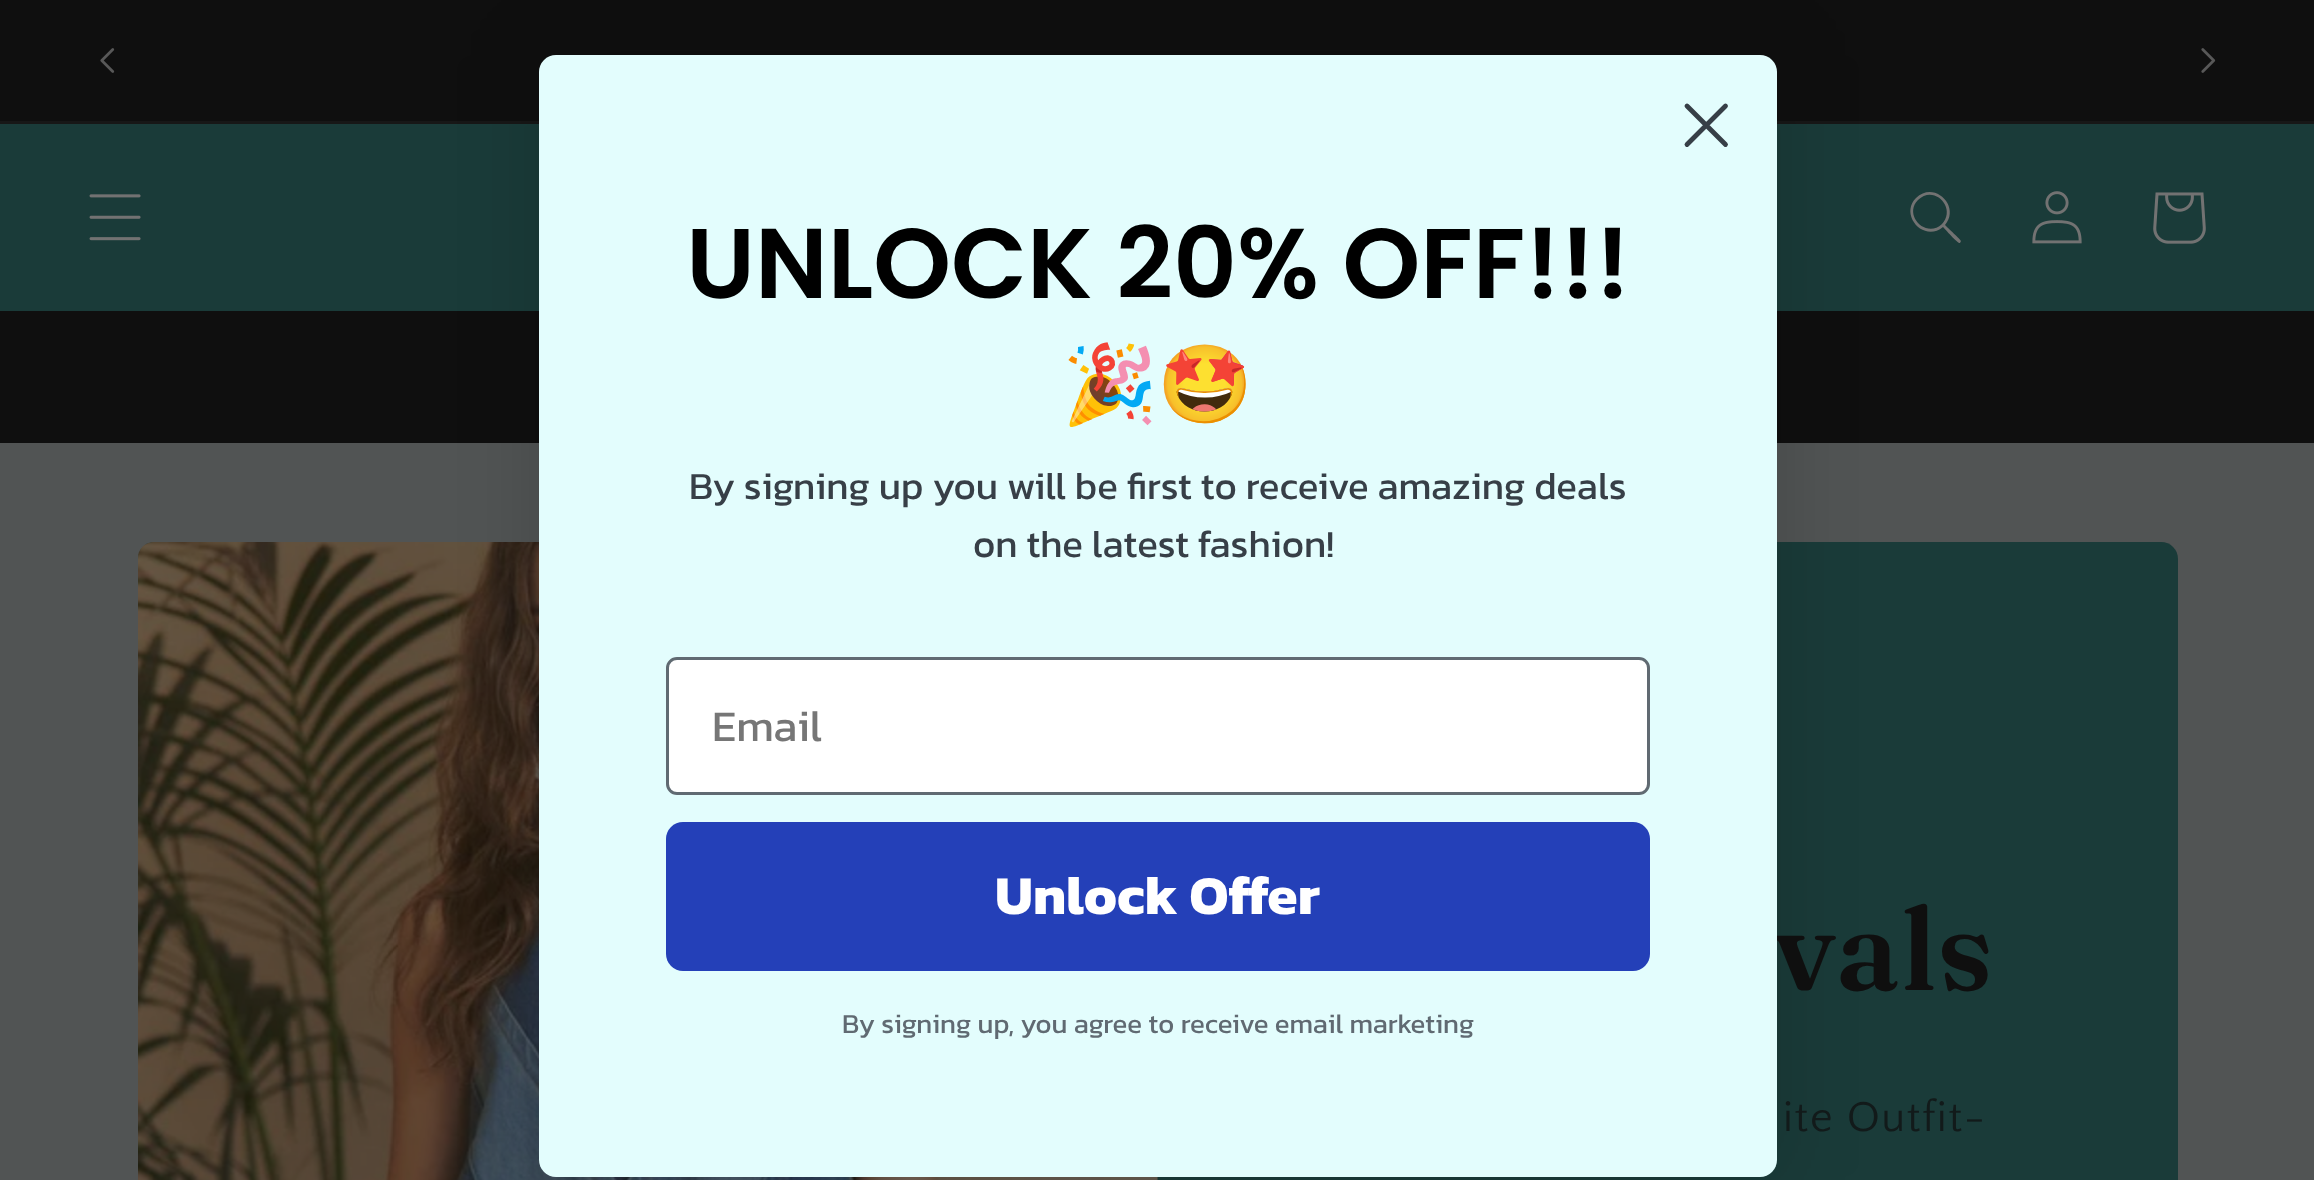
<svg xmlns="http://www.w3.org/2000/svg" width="2314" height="1180">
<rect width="100%" height="100%" fill="#1a3b39"/>
<rect width="2314" height="121" fill="#0f0f0f"/>
<rect y="121" width="2314" height="3" fill="#171717"/>
<image x="100" y="48" width="15" height="25" href="media/1.png"/>
<image x="2201" y="48" width="15" height="25" href="media/2.png"/>
<image x="89" y="194" width="52" height="47" href="media/3.png"/>
<path d="M1942 224c-16 15-39-9-24-24c16-16 39 8 24 24zm1 3c-19 16-44-12-27-29c18-18 45 8 29 27c2 2 16 15 16 16l-1 2c-2 1-15-14-17-16z" fill="#727272" fill-rule="evenodd"/>
<image x="2032" y="191" width="50" height="53" href="media/4.png"/>
<image x="2153" y="192" width="53" height="52" href="media/5.png"/>
<rect y="311" width="2314" height="132" fill="#0f0f0f"/>
<rect y="443" width="2314" height="737" fill="#515454"/>
<path d="M155 542h1003v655h-1003c-9.5 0-17-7.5-17-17v-621c0-9.5 7.5-17 17-17z" fill="#1a3b39"/>
<image x="138" y="542" width="1020" height="638" href="media/6.png"/>
<path d="M1158 542h1003c9.5 0 17 7.5 17 17v621c0 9.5-7.5 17-17 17h-1003z" fill="#1a3b39"/>
<rect x="539" y="55" width="1238" height="1122" rx="17" fill="#00000026" filter="blur(41px)"/>
<text x="1773" y="990" style="font-family:Fraunces;font-size:116px;font-weight:600;letter-spacing:1.5px;fill:#0f0f0f">vals</text>
<rect x="539" y="55" width="1238" height="1122" rx="17" fill="#e3fdfd"/>
<path d="M1687 106l38.5 38.5m-38.5 0l38.5-38.5z" fill="none" stroke="#373f47" stroke-width="4.8" stroke-linecap="round" stroke-linejoin="round"/>
<text x="686" y="298" style="font-family:Poppins;font-size:99px;font-weight:600;fill:#000">UNLOCK 20% OFF!!!</text>
<text x="1062" y="411" style="font-family:Noto Color Emoji;font-size:77px;font-weight:bold;fill:#000">🎉🤩</text>
<text x="689" y="499" style="font-family:Kanit;font-size:38.5px;fill:#373f47">By signing up you will be first to receive amazing deals</text>
<text x="973" y="557" style="font-family:Kanit;font-size:38.5px;fill:#373f47">on the latest fashion!</text>
<rect x="667.5" y="658.5" width="981" height="135" rx="9.5" fill="#fff" stroke="#606a72" stroke-width="3"/>
<text x="712" y="741" style="font-family:Kanit;font-size:44px;fill:#767676">Email</text>
<rect x="666" y="822" width="984" height="149" rx="17" fill="#2440b8"/>
<text x="995" y="914" style="font-family:Kanit;font-size:55px;font-weight:bold;fill:#fff">Unlock Offer</text>
<text x="842" y="1033" style="font-family:Kanit;font-size:27.5px;fill:#606a72">By signing up, you agree to receive email marketing</text>
<text x="1783" y="1131" style="font-family:Quattrocento Sans;font-size:44px;letter-spacing:1.6px;fill:#121a1a">ite Outfit-</text>
</svg>
